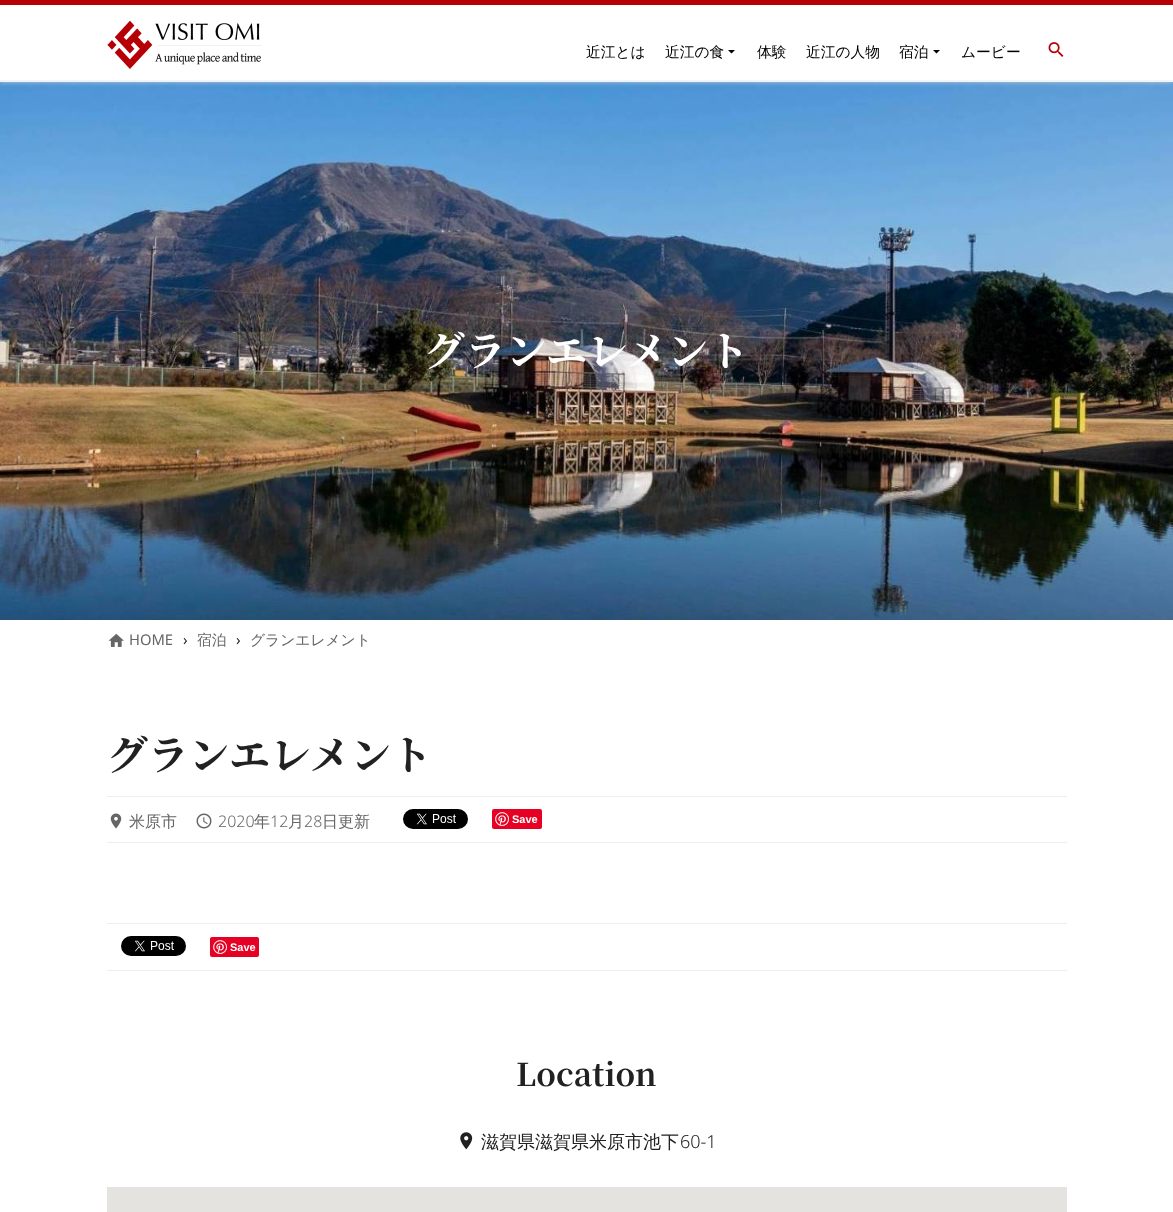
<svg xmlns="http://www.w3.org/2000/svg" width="1173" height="1212">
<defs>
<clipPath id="clip1"><rect x="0" y="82" width="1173" height="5"/></clipPath>
</defs>
<rect width="100%" height="100%" fill="#fff"/>
<image x="0" y="80" width="1173" height="540" href="media/3.png"/>
<g clip-path="url(#clip1)">
<rect width="1173" height="82" fill="#ccc" filter="blur(2.5px)"/>
</g>
<rect y="80" width="1173" height="2" fill="#ffffffe6"/>
<rect width="1173" height="5" fill="#b60005"/>
<image x="107" y="20" width="155" height="50" href="media/1.png"/>
<text x="586" y="57" style="font-family:WenQuanYi Zen Hei;font-size:14.75px;font-weight:500;fill:#000">近江とは</text>
<text x="665" y="57" style="font-family:WenQuanYi Zen Hei;font-size:14.75px;font-weight:500;fill:#000">近江の食</text>
<path d="M728 50h7l-3.5 3.5z" fill="#000"/>
<text x="757" y="57" style="font-family:WenQuanYi Zen Hei;font-size:14.75px;font-weight:500;fill:#000">体験</text>
<text x="806" y="57" style="font-family:WenQuanYi Zen Hei;font-size:14.75px;font-weight:500;fill:#000">近江の人物</text>
<text x="899" y="57" style="font-family:WenQuanYi Zen Hei;font-size:14.75px;font-weight:500;fill:#000">宿泊</text>
<path d="M933 50h7l-3.5 3.5z" fill="#000"/>
<text x="961" y="57" style="font-family:WenQuanYi Zen Hei;font-size:14.75px;font-weight:500;fill:#000">ムービー</text>
<image x="1048" y="42" width="16" height="15" href="media/2.png"/>
<text x="424" y="366" style="font-family:Noto Serif JP;font-size:40.75px;font-weight:bold;fill:#fff">グランエレメント</text>
<image x="108" y="633" width="16" height="14" href="media/4.png"/>
<text x="129" y="645" style="font-family:Noto Sans;font-size:14.75px;fill:#666">HOME</text>
<text x="183" y="645" style="font-family:Noto Sans;font-size:14.75px;fill:#212121">›</text>
<text x="197" y="645" style="font-family:WenQuanYi Zen Hei;font-size:14.75px;font-weight:500;fill:#666">宿泊</text>
<text x="236" y="645" style="font-family:Noto Sans;font-size:14.75px;fill:#212121">›</text>
<text x="250" y="645" style="font-family:WenQuanYi Zen Hei;font-size:14.75px;font-weight:500;fill:#666">グランエレメント</text>
<text x="107" y="770" style="font-family:Noto Serif JP;font-size:40.75px;font-weight:bold;fill:#212121">グランエレメント</text>
<rect x="107" y="796" width="960" height="1" fill="#eee"/>
<rect x="107" y="842" width="960" height="1" fill="#eee"/>
<image x="110" y="813" width="12" height="16" href="media/5.png"/>
<text x="129" y="827" style="font-family:WenQuanYi Zen Hei;font-size:16px;font-weight:500;fill:#666">米原市</text>
<image x="196" y="813" width="16" height="16" href="media/6.png"/>
<text x="218" y="827" style="font-family:Noto Sans;font-size:16px;font-weight:300;fill:#666">2020</text>
<text x="254" y="827" style="font-family:WenQuanYi Zen Hei;font-size:16px;font-weight:500;fill:#666">年</text>
<text x="270" y="827" style="font-family:Noto Sans;font-size:16px;font-weight:300;fill:#666">12</text>
<text x="288" y="827" style="font-family:WenQuanYi Zen Hei;font-size:16px;font-weight:500;fill:#666">月</text>
<text x="304" y="827" style="font-family:Noto Sans;font-size:16px;font-weight:300;fill:#666">28</text>
<text x="322" y="827" style="font-family:WenQuanYi Zen Hei;font-size:16px;font-weight:500;fill:#666">日更新</text>
<image x="403" y="809" width="65" height="20" href="media/7.png"/>
<rect x="492" y="809" width="50" height="20" rx="2" fill="#e60023"/>
<image x="495" y="812" width="14" height="14" href="media/8.png"/>
<text x="512" y="823" style="font-family:Liberation Sans;font-size:11px;font-weight:bold;fill:#fff">Save</text>
<rect x="107" y="923" width="960" height="1" fill="#eee"/>
<rect x="107" y="970" width="960" height="1" fill="#eee"/>
<image x="121" y="936" width="65" height="20" href="media/9.png"/>
<rect x="210" y="937" width="49" height="20" rx="2" fill="#e60023"/>
<image x="213" y="940" width="14" height="14" href="media/8.png"/>
<text x="230" y="951" style="font-family:Liberation Sans;font-size:11px;font-weight:bold;fill:#fff">Save</text>
<text x="516" y="1086" style="font-family:Noto Serif JP;font-size:31.5px;font-weight:bold;fill:#212121">Location</text>
<image x="460" y="1132" width="13" height="18" href="media/10.png"/>
<text x="481" y="1148" style="font-family:WenQuanYi Zen Hei;font-size:18px;font-weight:500;fill:#212121">滋賀県滋賀県米原市池下</text>
<text x="680" y="1148" style="font-family:Noto Sans;font-size:18px;font-weight:300;fill:#212121">60-1</text>
<rect x="107" y="1187" width="960" height="25" fill="#e5e3df"/>
</svg>
